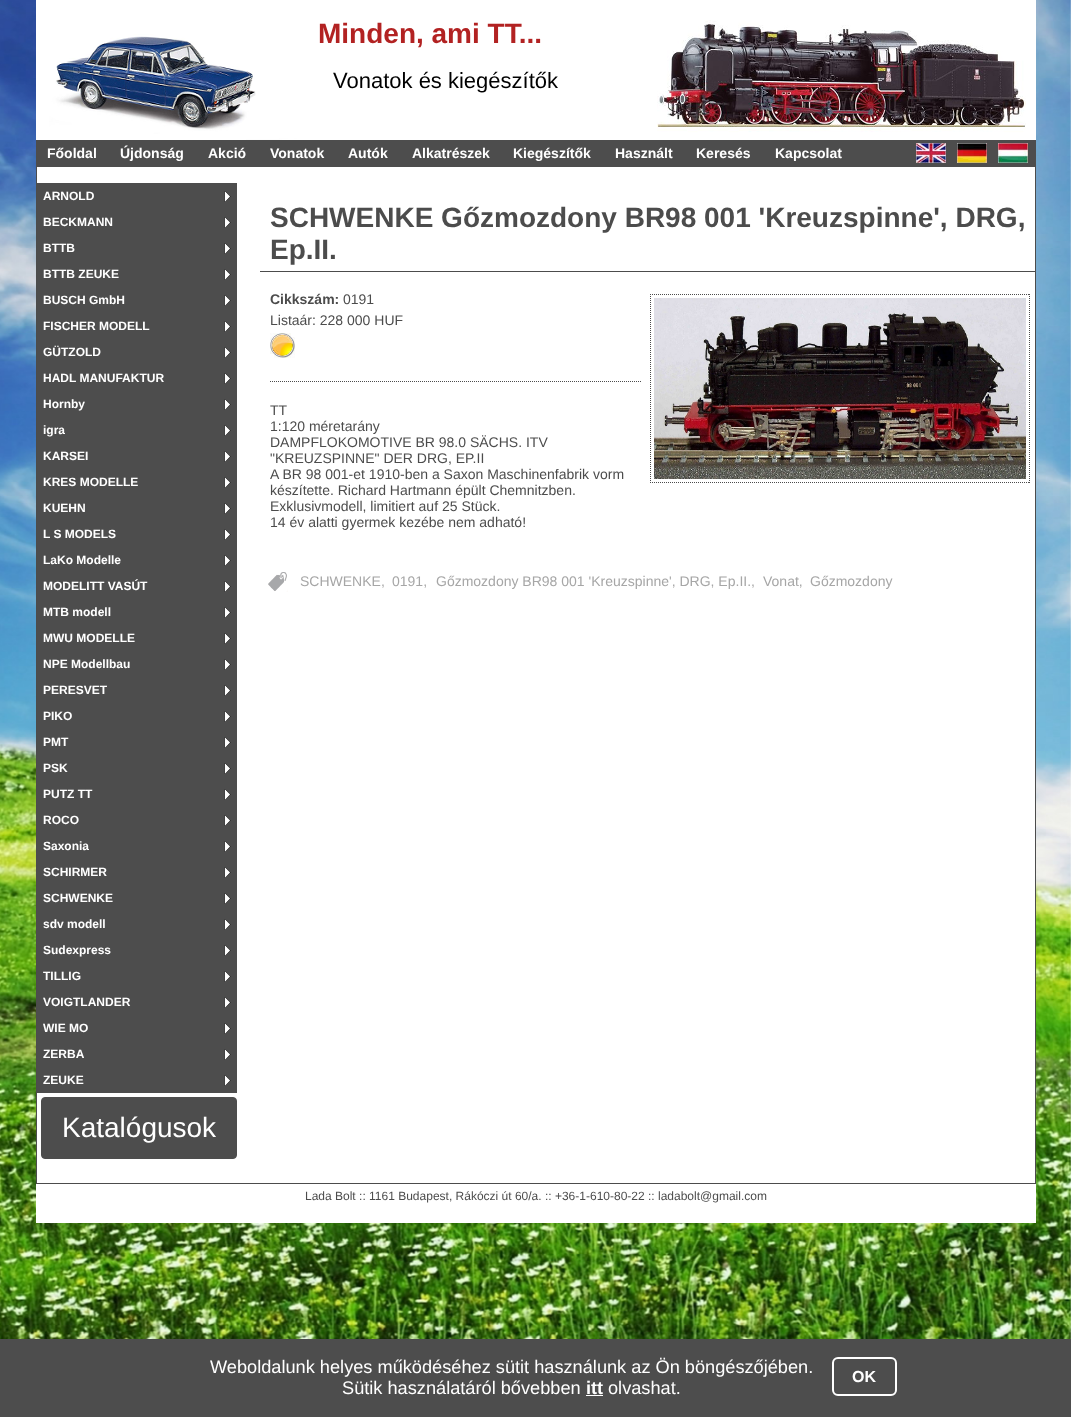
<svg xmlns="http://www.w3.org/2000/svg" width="1071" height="1417">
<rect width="100%" height="100%" fill="#fff"/>
<image x="0" y="0" width="1071" height="1339" href="media/1.png"/>
<image x="36" y="0" width="1000" height="140" href="media/2.png"/>
<text x="318" y="43" style="font-family:Liberation Sans;font-size:28px;font-weight:bold;fill:#b22222">Minden, ami TT...</text>
<text x="333" y="88" style="font-family:Liberation Sans;font-size:22px;fill:#000">Vonatok és kiegészítők</text>
<rect x="36" y="140" width="1000" height="27" fill="#4d4d4d"/>
<text x="47" y="158" style="font-family:Liberation Sans;font-size:14px;font-weight:bold;fill:#fff">Főoldal</text>
<text x="120" y="158" style="font-family:Liberation Sans;font-size:14px;font-weight:bold;fill:#fff">Újdonság</text>
<text x="208" y="158" style="font-family:Liberation Sans;font-size:14px;font-weight:bold;fill:#fff">Akció</text>
<text x="270" y="158" style="font-family:Liberation Sans;font-size:14px;font-weight:bold;fill:#fff">Vonatok</text>
<text x="348" y="158" style="font-family:Liberation Sans;font-size:14px;font-weight:bold;fill:#fff">Autók</text>
<text x="412" y="158" style="font-family:Liberation Sans;font-size:14px;font-weight:bold;fill:#fff">Alkatrészek</text>
<text x="513" y="158" style="font-family:Liberation Sans;font-size:14px;font-weight:bold;fill:#fff">Kiegészítők</text>
<text x="615" y="158" style="font-family:Liberation Sans;font-size:14px;font-weight:bold;fill:#fff">Használt</text>
<text x="696" y="158" style="font-family:Liberation Sans;font-size:14px;font-weight:bold;fill:#fff">Keresés</text>
<text x="775" y="158" style="font-family:Liberation Sans;font-size:14px;font-weight:bold;fill:#fff">Kapcsolat</text>
<image x="916" y="143" width="30" height="20" href="media/3.png"/>
<image x="957" y="143" width="30" height="20" href="media/4.png"/>
<image x="998" y="143" width="30" height="20" href="media/5.png"/>
<rect x="37" y="167" width="998" height="1016" fill="#fff"/>
<rect x="1035" y="167" width="1" height="1016" fill="#4c4c4c"/>
<rect x="36" y="167" width="1" height="1016" fill="#4c4c4c"/>
<rect x="37" y="183" width="200" height="910" fill="#4d4d4d"/>
<image x="224" y="191" width="7" height="11" href="media/6.png"/>
<text x="43" y="200" style="font-family:Liberation Sans;font-size:12px;font-weight:bold;fill:#fff">ARNOLD</text>
<image x="224" y="217" width="7" height="11" href="media/6.png"/>
<text x="43" y="226" style="font-family:Liberation Sans;font-size:12px;font-weight:bold;fill:#fff">BECKMANN</text>
<image x="224" y="243" width="7" height="11" href="media/6.png"/>
<text x="43" y="252" style="font-family:Liberation Sans;font-size:12px;font-weight:bold;fill:#fff">BTTB</text>
<image x="224" y="269" width="7" height="11" href="media/6.png"/>
<text x="43" y="278" style="font-family:Liberation Sans;font-size:12px;font-weight:bold;fill:#fff">BTTB ZEUKE</text>
<image x="224" y="295" width="7" height="11" href="media/6.png"/>
<text x="43" y="304" style="font-family:Liberation Sans;font-size:12px;font-weight:bold;fill:#fff">BUSCH GmbH</text>
<image x="224" y="321" width="7" height="11" href="media/6.png"/>
<text x="43" y="330" style="font-family:Liberation Sans;font-size:12px;font-weight:bold;fill:#fff">FISCHER MODELL</text>
<image x="224" y="347" width="7" height="11" href="media/6.png"/>
<text x="43" y="356" style="font-family:Liberation Sans;font-size:12px;font-weight:bold;fill:#fff">GÜTZOLD</text>
<image x="224" y="373" width="7" height="11" href="media/6.png"/>
<text x="43" y="382" style="font-family:Liberation Sans;font-size:12px;font-weight:bold;fill:#fff">HADL MANUFAKTUR</text>
<image x="224" y="399" width="7" height="11" href="media/6.png"/>
<text x="43" y="408" style="font-family:Liberation Sans;font-size:12px;font-weight:bold;fill:#fff">Hornby</text>
<image x="224" y="425" width="7" height="11" href="media/6.png"/>
<text x="43" y="434" style="font-family:Liberation Sans;font-size:12px;font-weight:bold;fill:#fff">igra</text>
<image x="224" y="451" width="7" height="11" href="media/6.png"/>
<text x="43" y="460" style="font-family:Liberation Sans;font-size:12px;font-weight:bold;fill:#fff">KARSEI</text>
<image x="224" y="477" width="7" height="11" href="media/6.png"/>
<text x="43" y="486" style="font-family:Liberation Sans;font-size:12px;font-weight:bold;fill:#fff">KRES MODELLE</text>
<image x="224" y="503" width="7" height="11" href="media/6.png"/>
<text x="43" y="512" style="font-family:Liberation Sans;font-size:12px;font-weight:bold;fill:#fff">KUEHN</text>
<image x="224" y="529" width="7" height="11" href="media/6.png"/>
<text x="43" y="538" style="font-family:Liberation Sans;font-size:12px;font-weight:bold;fill:#fff">L S MODELS</text>
<image x="224" y="555" width="7" height="11" href="media/6.png"/>
<text x="43" y="564" style="font-family:Liberation Sans;font-size:12px;font-weight:bold;fill:#fff">LaKo Modelle</text>
<image x="224" y="581" width="7" height="11" href="media/6.png"/>
<text x="43" y="590" style="font-family:Liberation Sans;font-size:12px;font-weight:bold;fill:#fff">MODELITT VASÚT</text>
<image x="224" y="607" width="7" height="11" href="media/6.png"/>
<text x="43" y="616" style="font-family:Liberation Sans;font-size:12px;font-weight:bold;fill:#fff">MTB modell</text>
<image x="224" y="633" width="7" height="11" href="media/6.png"/>
<text x="43" y="642" style="font-family:Liberation Sans;font-size:12px;font-weight:bold;fill:#fff">MWU MODELLE</text>
<image x="224" y="659" width="7" height="11" href="media/6.png"/>
<text x="43" y="668" style="font-family:Liberation Sans;font-size:12px;font-weight:bold;fill:#fff">NPE Modellbau</text>
<image x="224" y="685" width="7" height="11" href="media/6.png"/>
<text x="43" y="694" style="font-family:Liberation Sans;font-size:12px;font-weight:bold;fill:#fff">PERESVET</text>
<image x="224" y="711" width="7" height="11" href="media/6.png"/>
<text x="43" y="720" style="font-family:Liberation Sans;font-size:12px;font-weight:bold;fill:#fff">PIKO</text>
<image x="224" y="737" width="7" height="11" href="media/6.png"/>
<text x="43" y="746" style="font-family:Liberation Sans;font-size:12px;font-weight:bold;fill:#fff">PMT</text>
<image x="224" y="763" width="7" height="11" href="media/6.png"/>
<text x="43" y="772" style="font-family:Liberation Sans;font-size:12px;font-weight:bold;fill:#fff">PSK</text>
<image x="224" y="789" width="7" height="11" href="media/6.png"/>
<text x="43" y="798" style="font-family:Liberation Sans;font-size:12px;font-weight:bold;fill:#fff">PUTZ TT</text>
<image x="224" y="815" width="7" height="11" href="media/6.png"/>
<text x="43" y="824" style="font-family:Liberation Sans;font-size:12px;font-weight:bold;fill:#fff">ROCO</text>
<image x="224" y="841" width="7" height="11" href="media/6.png"/>
<text x="43" y="850" style="font-family:Liberation Sans;font-size:12px;font-weight:bold;fill:#fff">Saxonia</text>
<image x="224" y="867" width="7" height="11" href="media/6.png"/>
<text x="43" y="876" style="font-family:Liberation Sans;font-size:12px;font-weight:bold;fill:#fff">SCHIRMER</text>
<image x="224" y="893" width="7" height="11" href="media/6.png"/>
<text x="43" y="902" style="font-family:Liberation Sans;font-size:12px;font-weight:bold;fill:#fff">SCHWENKE</text>
<image x="224" y="919" width="7" height="11" href="media/6.png"/>
<text x="43" y="928" style="font-family:Liberation Sans;font-size:12px;font-weight:bold;fill:#fff">sdv modell</text>
<image x="224" y="945" width="7" height="11" href="media/6.png"/>
<text x="43" y="954" style="font-family:Liberation Sans;font-size:12px;font-weight:bold;fill:#fff">Sudexpress</text>
<image x="224" y="971" width="7" height="11" href="media/6.png"/>
<text x="43" y="980" style="font-family:Liberation Sans;font-size:12px;font-weight:bold;fill:#fff">TILLIG</text>
<image x="224" y="997" width="7" height="11" href="media/6.png"/>
<text x="43" y="1006" style="font-family:Liberation Sans;font-size:12px;font-weight:bold;fill:#fff">VOIGTLANDER</text>
<image x="224" y="1023" width="7" height="11" href="media/6.png"/>
<text x="43" y="1032" style="font-family:Liberation Sans;font-size:12px;font-weight:bold;fill:#fff">WIE MO</text>
<image x="224" y="1049" width="7" height="11" href="media/6.png"/>
<text x="43" y="1058" style="font-family:Liberation Sans;font-size:12px;font-weight:bold;fill:#fff">ZERBA</text>
<image x="224" y="1075" width="7" height="11" href="media/6.png"/>
<text x="43" y="1084" style="font-family:Liberation Sans;font-size:12px;font-weight:bold;fill:#fff">ZEUKE</text>
<rect x="41.5" y="1097.5" width="195" height="61" rx="3.5" fill="#4d4d4d" stroke="#4d4d4d"/>
<text x="62" y="1137" style="font-family:Liberation Sans;font-size:28px;fill:#fff">Katalógusok</text>
<rect x="260" y="271" width="775" height="1" fill="#4c4c4c"/>
<text x="270" y="227" style="font-family:Liberation Sans;font-size:28px;font-weight:bold;fill:#4c4c4c">SCHWENKE Gőzmozdony BR98 001 'Kreuzspinne', DRG,</text>
<text x="270" y="259" style="font-family:Liberation Sans;font-size:28px;font-weight:bold;fill:#4c4c4c">Ep.II.</text>
<text x="270" y="304" style="font-family:Liberation Sans;font-size:14px;font-weight:bold;fill:#4c4c4c">Cikkszám:</text>
<text x="343" y="304" style="font-family:Liberation Sans;font-size:14px;fill:#4c4c4c">0191</text>
<text x="270" y="325" style="font-family:Liberation Sans;font-size:14px;fill:#4c4c4c">Listaár: 228 000 HUF</text>
<image x="270" y="333" width="25" height="25" href="media/7.png"/>
<path d="M270 381.5h372" fill="none" stroke="#4c4c4c" stroke-dasharray="1 1"/>
<text x="270" y="415" style="font-family:Liberation Sans;font-size:14px;fill:#4c4c4c">TT</text>
<text x="270" y="431" style="font-family:Liberation Sans;font-size:14px;fill:#4c4c4c">1:120 méretarány</text>
<text x="270" y="447" style="font-family:Liberation Sans;font-size:14px;fill:#4c4c4c">DAMPFLOKOMOTIVE BR 98.0 SÄCHS. ITV</text>
<text x="270" y="463" style="font-family:Liberation Sans;font-size:14px;fill:#4c4c4c">"KREUZSPINNE" DER DRG, EP.II</text>
<text x="270" y="479" style="font-family:Liberation Sans;font-size:14px;fill:#4c4c4c">A BR 98 001-et 1910-ben a Saxon Maschinenfabrik vorm</text>
<text x="270" y="495" style="font-family:Liberation Sans;font-size:14px;fill:#4c4c4c">készítette. Richard Hartmann épült Chemnitzben.</text>
<text x="270" y="511" style="font-family:Liberation Sans;font-size:14px;fill:#4c4c4c">Exklusivmodell, limitiert auf 25 Stück.</text>
<text x="270" y="527" style="font-family:Liberation Sans;font-size:14px;fill:#4c4c4c">14 év alatti gyermek kezébe nem adható!</text>
<path d="M650 294.5h380" fill="none" stroke="#4c4c4c" stroke-dasharray="1 1"/>
<path d="M1029.5 294v189" fill="none" stroke="#4c4c4c" stroke-dasharray="1 1"/>
<path d="M650 482.5h380" fill="none" stroke="#4c4c4c" stroke-dasharray="1 1"/>
<path d="M650.5 294v189" fill="none" stroke="#4c4c4c" stroke-dasharray="1 1"/>
<image x="654" y="298" width="372" height="181" href="media/8.png"/>
<image x="268" y="572" width="20" height="20" href="media/9.png"/>
<text x="300" y="586" style="font-family:Liberation Sans;font-size:14px;fill:#a6a6a6">SCHWENKE,</text>
<text x="392" y="586" style="font-family:Liberation Sans;font-size:14px;fill:#a6a6a6">0191,</text>
<text x="436" y="586" style="font-family:Liberation Sans;font-size:14px;fill:#a6a6a6">Gőzmozdony BR98 001 'Kreuzspinne', DRG, Ep.II.,</text>
<text x="763" y="586" style="font-family:Liberation Sans;font-size:14px;fill:#a6a6a6">Vonat,</text>
<text x="810" y="586" style="font-family:Liberation Sans;font-size:14px;fill:#a6a6a6">Gőzmozdony</text>
<rect x="36" y="1184" width="1000" height="39" fill="#fff"/>
<rect x="36" y="1183" width="1000" height="1" fill="#4c4c4c"/>
<text x="305" y="1200" style="font-family:Liberation Sans;font-size:12px;fill:#4c4c4c">Lada Bolt :: 1161 Budapest, Rákóczi út 60/a. :: +36-1-610-80-22 :: ladabolt@gmail.com</text>
<rect y="1339" width="1071" height="78" fill="#4d4d4d"/>
<text x="210" y="1373" style="font-family:Liberation Sans;font-size:18.2px;fill:#fff">Weboldalunk helyes működéséhez sütit használunk az Ön böngészőjében.</text>
<text x="342" y="1394" style="font-family:Liberation Sans;font-size:18.2px;fill:#fff">Sütik használatáról bővebben</text>
<text x="586" y="1394" style="font-family:Liberation Sans;font-size:18.2px;font-weight:bold;fill:#fff">itt</text>
<rect x="586" y="1395" width="17" height="1" fill="#fff"/>
<text x="608" y="1394" style="font-family:Liberation Sans;font-size:18.2px;fill:#fff">olvashat.</text>
<rect x="833" y="1358" width="63" height="37" rx="5" fill="none" stroke="#fff" stroke-width="2"/>
<text x="852" y="1382" style="font-family:Liberation Sans;font-size:16px;font-weight:bold;fill:#fff">OK</text>
</svg>
